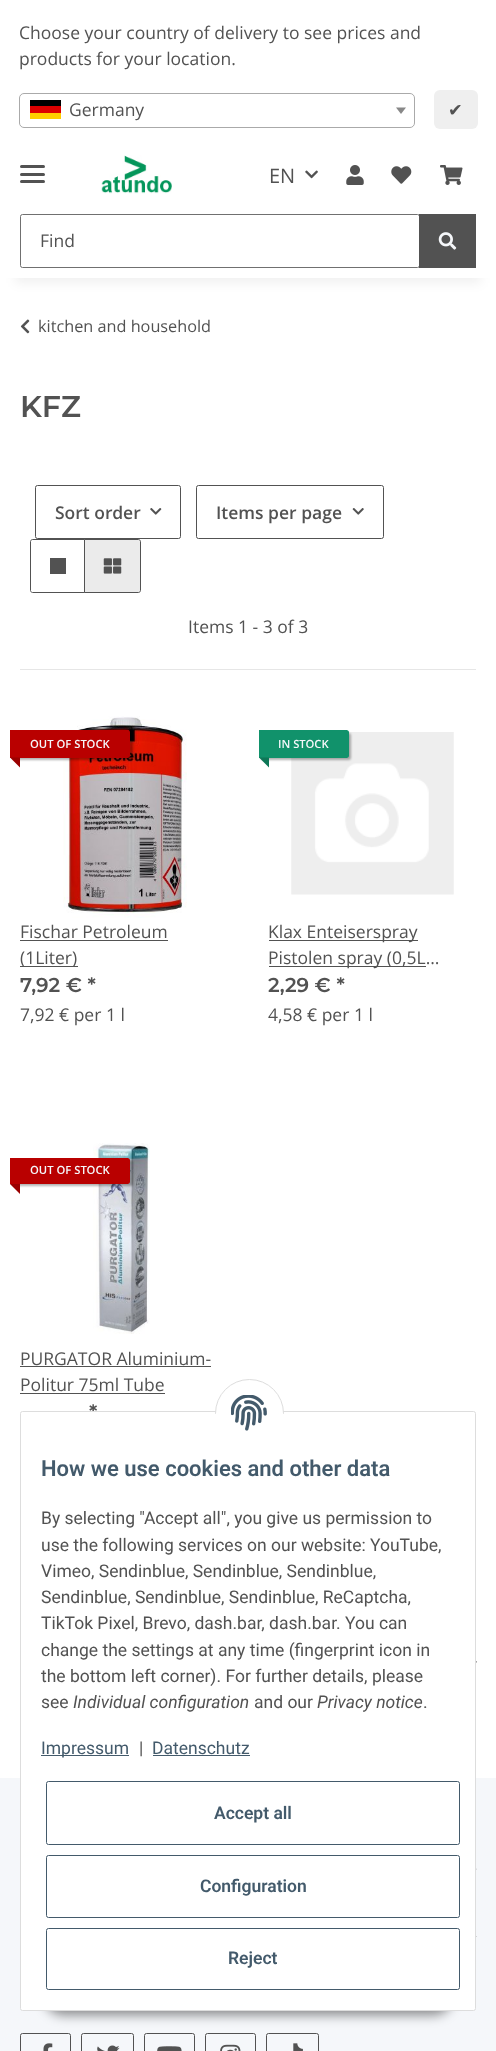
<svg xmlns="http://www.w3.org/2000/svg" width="496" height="2051">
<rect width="100%" height="100%" fill="#f5f7fa"/>
<rect y="278" width="496" height="1500" fill="#fff"/>
<rect x="15" y="35" width="466" height="248" fill="#0000000f" filter="blur(5.5px)"/>
<rect width="496" height="278" fill="#fff"/>
<text x="19" y="39" style="font-family:Open Sans;font-size:17.5px;fill:#525252">Choose your country of delivery to see prices and</text>
<text x="19" y="65" style="font-family:Open Sans;font-size:17.5px;fill:#525252">products for your location.</text>
<rect x="19.5" y="93.5" width="395" height="34" rx="4.5" fill="none" stroke="#aaa"/>
<rect x="30" y="100" width="31" height="6" fill="#000"/>
<rect x="30" y="106" width="31" height="7" fill="#d00"/>
<rect x="30" y="113" width="31" height="6" fill="#ffce00"/>
<text x="69" y="116" style="font-family:Open Sans;font-size:17.5px;fill:#525252">Germany</text>
<path d="M396 107.5h10l-5 6.5z" fill="#888"/>
<rect x="434" y="90" width="44" height="39" rx="6" fill="#efefef"/>
<text x="448" y="116" style="font-family:DejaVu Sans;font-size:17.5px;fill:#525252">✔</text>
<rect x="20" y="173" width="25" height="3" rx="1.5" fill="#525252"/>
<rect x="20" y="165" width="25" height="3" rx="1.5" fill="#525252"/>
<rect x="20" y="180" width="25" height="3" rx="1.5" fill="#525252"/>
<image x="101" y="155" width="71" height="39" href="media/1.png"/>
<text x="269" y="183" style="font-family:Open Sans;font-size:20px;fill:#525252">EN</text>
<image x="305" y="170" width="13" height="9" href="media/2.png"/>
<image x="346" y="165" width="18" height="20" href="media/3.png"/>
<image x="391" y="166" width="21" height="18" href="media/4.png"/>
<image x="440" y="165" width="23" height="20" href="media/5.png"/>
<rect x="20.5" y="214.5" width="399" height="53" rx="2" fill="none" stroke="#707070"/>
<text x="40" y="247" style="font-family:Open Sans;font-size:17.5px;fill:#525252">Find</text>
<rect x="419" y="214" width="57" height="54" fill="#525252"/>
<image x="438" y="232" width="19" height="18" href="media/6.png"/>
<image x="20" y="319" width="10" height="15" href="media/7.png"/>
<text x="38" y="332" style="font-family:Open Sans;font-size:16.25px;fill:#525252">kitchen and household</text>
<text x="20" y="417" style="font-family:Montserrat;font-size:30px;font-weight:600;fill:#525252">KFZ</text>
<rect x="35.5" y="485.5" width="145" height="53" rx="2" fill="none" stroke="#525252"/>
<text x="55" y="519" style="font-family:Open Sans;font-size:17.5px;font-weight:600;fill:#525252">Sort order</text>
<image x="150" y="508" width="12" height="7" href="media/8.png"/>
<rect x="196.5" y="485.5" width="187" height="53" rx="2" fill="none" stroke="#525252"/>
<text x="216" y="519" style="font-family:Open Sans;font-size:17.5px;font-weight:600;fill:#525252">Items per page</text>
<image x="352" y="508" width="12" height="7" href="media/9.png"/>
<path d="M32.5 539.5h52v53h-52c-1 0-2-1-2-2v-49c0-1 1-2 2-2z" fill="none" stroke="#525252"/>
<rect x="50" y="558" width="16" height="16" fill="#525252"/>
<path d="M84.5 539.5h54c1 0 2 1 2 2v49c0 1-1 2-2 2h-54z" fill="#ebebeb" stroke="#525252"/>
<image x="103" y="558" width="19" height="16" href="media/10.png"/>
<text x="188" y="633" style="font-family:Open Sans;font-size:17.5px;fill:#525252">Items 1 - 3 of 3</text>
<rect x="20" y="669" width="456" height="1" fill="#e6e6e6"/>
<image x="63" y="716" width="124" height="202" href="media/11.png"/>
<rect x="13" y="733" width="120" height="27" rx="2.5" fill="#0000004d" filter="blur(1px)"/>
<path d="M10 730h117.5c1.5 0 2.5 1 2.5 2.5v23c0 1.5-1 2.5-2.5 2.5h-117.5z" fill="#b90000"/>
<text x="30" y="748" style="font-family:Open Sans;font-size:11.25px;font-weight:600;fill:#f5f7fa">OUT OF STOCK</text>
<path d="M20 757.5v10l-10-10z" fill="#9a0000"/>
<text x="20" y="938" style="font-family:Open Sans;font-size:17.5px;fill:#525252">Fischar Petroleum</text>
<rect x="20" y="940" width="148" height="1" fill="#525252"/>
<rect x="20" y="966" width="58" height="1" fill="#525252"/>
<text x="20" y="964" style="font-family:Open Sans;font-size:17.5px;fill:#525252">(1Liter)</text>
<text x="20" y="992" style="font-family:Montserrat;font-size:20px;font-weight:600;fill:#525252">7,92 € *</text>
<text x="20" y="1021" style="font-family:Open Sans;font-size:17.5px;fill:#525252">7,92 € per 1 l</text>
<image x="291" y="732" width="163" height="163" href="media/12.png"/>
<rect x="261" y="733" width="90" height="27" rx="2.5" fill="#0000004d" filter="blur(1px)"/>
<path d="M259 730h87.5c1.5 0 2.5 1 2.5 2.5v23c0 1.5-1 2.5-2.5 2.5h-87.5z" fill="#11926b"/>
<text x="278" y="748" style="font-family:Open Sans;font-size:11.25px;font-weight:600;fill:#f5f7fa">IN STOCK</text>
<path d="M269 757.5v10l-10-10z" fill="#0e7757"/>
<rect x="269" y="940" width="149" height="1" fill="#525252"/>
<text x="268" y="938" style="font-family:Open Sans;font-size:17.5px;fill:#525252">Klax Enteiserspray</text>
<rect x="269" y="966" width="157" height="1" fill="#525252"/>
<text x="268" y="964" style="font-family:Open Sans;font-size:17.5px;fill:#525252">Pistolen spray (0,5L…</text>
<text x="268" y="992" style="font-family:Montserrat;font-size:20px;font-weight:600;fill:#525252">2,29 € *</text>
<text x="268" y="1021" style="font-family:Open Sans;font-size:17.5px;fill:#525252">4,58 € per 1 l</text>
<image x="93" y="1143" width="57" height="191" href="media/13.png"/>
<rect x="13" y="1160" width="120" height="26" rx="2.5" fill="#0000004d" filter="blur(1px)"/>
<path d="M10 1158h117.5c1.5 0 2.5 1 2.5 2.5v21c0 1.5-1 2.5-2.5 2.5h-117.5z" fill="#b90000"/>
<text x="30" y="1174" style="font-family:Open Sans;font-size:11.25px;font-weight:600;fill:#f5f7fa">OUT OF STOCK</text>
<path d="M20 1184v10l-10-10z" fill="#9a0000"/>
<text x="20" y="1365" style="font-family:Open Sans;font-size:17.5px;fill:#525252">PURGATOR Aluminium-</text>
<rect x="20" y="1366" width="191" height="1" fill="#525252"/>
<text x="20" y="1391" style="font-family:Open Sans;font-size:17.5px;fill:#525252">Politur 75ml Tube</text>
<rect x="20" y="1393" width="145" height="1" fill="#525252"/>
<text x="89" y="1419" style="font-family:Montserrat;font-size:20px;font-weight:600;fill:#525252">*</text>
<image x="476" y="1661" width="1" height="2" href="media/14.png"/>
<rect x="20.5" y="2033.5" width="50" height="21" rx="2" fill="none" stroke="#525252"/>
<rect x="81.5" y="2033.5" width="52" height="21" rx="2" fill="none" stroke="#525252"/>
<rect x="144.5" y="2033.5" width="50" height="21" rx="2" fill="none" stroke="#525252"/>
<rect x="205.5" y="2033.5" width="50" height="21" rx="2" fill="none" stroke="#525252"/>
<rect x="266.5" y="2033.5" width="52" height="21" rx="2" fill="none" stroke="#525252"/>
<rect x="44" y="1975" width="409" height="40" rx="20" fill="#00000073" filter="blur(6px)"/>
<rect x="20.5" y="1411.5" width="455" height="599" rx="2" fill="#fff" stroke="#ddd"/>
<circle cx="249.5" cy="1413.5" r="34" fill="#fff" stroke="#ddd"/>
<rect x="215" y="1414" width="69" height="34" fill="#fff"/>
<image x="231" y="1395" width="36" height="36" href="media/15.png"/>
<text x="41" y="1476" style="font-family:Roboto;font-size:22px;font-weight:600;fill:#435a6b">How we use cookies and other data</text>
<text x="41" y="1524" style="font-family:Roboto;font-size:17.5px;fill:#525252">By selecting "Accept all", you give us permission to</text>
<text x="41" y="1551" style="font-family:Roboto;font-size:17.5px;fill:#525252">use the following services on our website: YouTube,</text>
<text x="41" y="1577" style="font-family:Roboto;font-size:17.5px;fill:#525252">Vimeo, Sendinblue, Sendinblue, Sendinblue,</text>
<text x="41" y="1603" style="font-family:Roboto;font-size:17.5px;fill:#525252">Sendinblue, Sendinblue, Sendinblue, ReCaptcha,</text>
<text x="41" y="1629" style="font-family:Roboto;font-size:17.5px;fill:#525252">TikTok Pixel, Brevo, dash.bar, dash.bar. You can</text>
<text x="41" y="1656" style="font-family:Roboto;font-size:17.5px;fill:#525252">change the settings at any time (fingerprint icon in</text>
<text x="41" y="1682" style="font-family:Roboto;font-size:17.5px;fill:#525252">the bottom left corner). For further details, please</text>
<text x="41" y="1708" style="font-family:Roboto;font-size:17.5px;fill:#525252">see</text>
<text x="73" y="1708" style="font-family:Roboto;font-size:17.5px;font-style:italic;fill:#525252">Individual configuration</text>
<text x="254" y="1708" style="font-family:Roboto;font-size:17.5px;fill:#525252">and our</text>
<text x="317" y="1708" style="font-family:Roboto;font-size:17.5px;font-style:italic;fill:#525252">Privacy notice</text>
<text x="423" y="1708" style="font-family:Roboto;font-size:17.5px;fill:#525252">.</text>
<rect x="41" y="1755" width="88" height="1" fill="#435a6b"/>
<text x="41" y="1754" style="font-family:Roboto;font-size:17.5px;fill:#435a6b">Impressum</text>
<text x="139" y="1754" style="font-family:Roboto;font-size:17.5px;fill:#525252">|</text>
<text x="152" y="1754" style="font-family:Roboto;font-size:17.5px;fill:#435a6b">Datenschutz</text>
<rect x="153" y="1755" width="97" height="1" fill="#435a6b"/>
<rect x="46.5" y="1781.5" width="413" height="63" rx="2" fill="none" stroke="#435a6b"/>
<text x="214" y="1819" style="font-family:Roboto;font-size:17.5px;font-weight:600;fill:#435a6b">Accept all</text>
<rect x="46.5" y="1855.5" width="413" height="62" rx="2" fill="none" stroke="#435a6b"/>
<text x="200" y="1892" style="font-family:Roboto;font-size:17.5px;font-weight:600;fill:#435a6b">Configuration</text>
<rect x="46.5" y="1928.5" width="413" height="61" rx="2" fill="none" stroke="#435a6b"/>
<text x="228" y="1964" style="font-family:Roboto;font-size:17.5px;font-weight:600;fill:#435a6b">Reject</text>
<image x="476" y="1868" width="1" height="2" href="media/16.png"/>
<image x="476" y="1936" width="1" height="1" href="media/17.png"/>
<image x="43" y="2043" width="10" height="8" href="media/18.png"/>
<image x="97" y="2045" width="23" height="6" href="media/19.png"/>
<image x="157" y="2046" width="25" height="5" href="media/20.png"/>
<image x="220" y="2044" width="21" height="7" href="media/21.png"/>
<image x="293" y="2043" width="10" height="8" href="media/22.png"/>
</svg>
